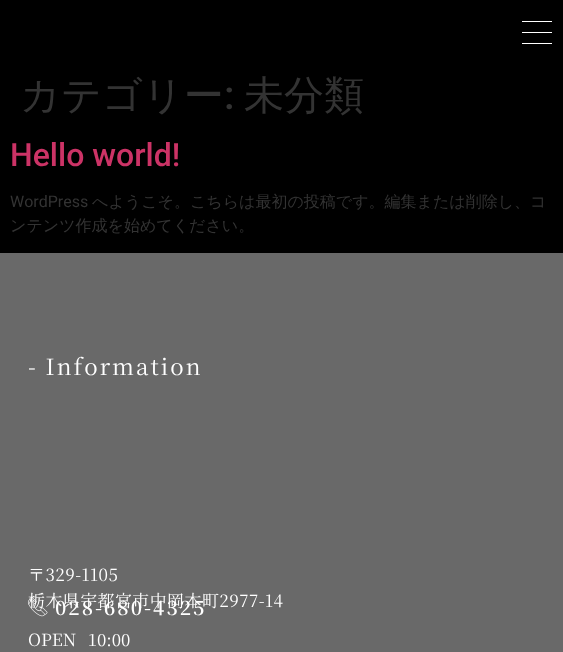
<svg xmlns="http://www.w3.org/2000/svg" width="563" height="652">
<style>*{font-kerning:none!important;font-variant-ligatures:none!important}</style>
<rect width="100%" height="100%" fill="#000"/>
<rect x="522" y="21" width="30" height="1" fill="#fff"/>
<rect x="522" y="32" width="30" height="1" fill="#fff"/>
<rect x="522" y="43" width="30" height="1" fill="#fff"/>
<text x="20" y="109" style="font-family:WenQuanYi Zen Hei;font-size:40px;font-weight:500;fill:#333">カテゴリー</text>
<text x="224" y="109" style="font-family:Roboto;font-size:40px;font-weight:500;fill:#333">:</text>
<text x="244" y="109" style="font-family:WenQuanYi Zen Hei;font-size:40px;font-weight:500;fill:#333">未分類</text>
<text x="10" y="166" style="font-family:Roboto;font-size:32px;font-weight:500;fill:#c36">Hello world!</text>
<text x="10" y="207" style="font-family:Roboto;font-size:16px;fill:#333">WordPress</text>
<text x="92" y="207" style="font-family:WenQuanYi Zen Hei;font-size:16px;font-weight:500;fill:#333">へようこそ。こちらは最初の投稿です。編集または削除し、コ</text>
<text x="10" y="231" style="font-family:WenQuanYi Zen Hei;font-size:16px;font-weight:500;fill:#333">ンテンツ作成を始めてください。</text>
<rect y="253" width="563" height="399" fill="#696969"/>
<text x="28" y="375" style="font-family:Noto Serif JP;font-size:22.5px;letter-spacing:2px;fill:#fff">- Information</text>
<text x="28" y="581" style="font-family:Noto Serif JP;font-size:16.9px;letter-spacing:0.5px;fill:#fff">〒329-1105</text>
<text x="28" y="607" style="font-family:Noto Serif JP;font-size:16.9px;letter-spacing:0.5px;fill:#fff">栃木県宇都宮市中岡本町2977-14</text>
<image x="27" y="596" width="21" height="21" href="media/1.png"/>
<text x="55" y="615" style="font-family:Noto Serif JP;font-size:19.75px;font-weight:600;letter-spacing:2px;fill:#fff">028-680-4325</text>
<text x="28" y="646" word-spacing="-0.5" style="font-family:Noto Serif JP;font-size:16.9px;fill:#fff" xml:space="preserve">OPEN   10:00</text>
</svg>
